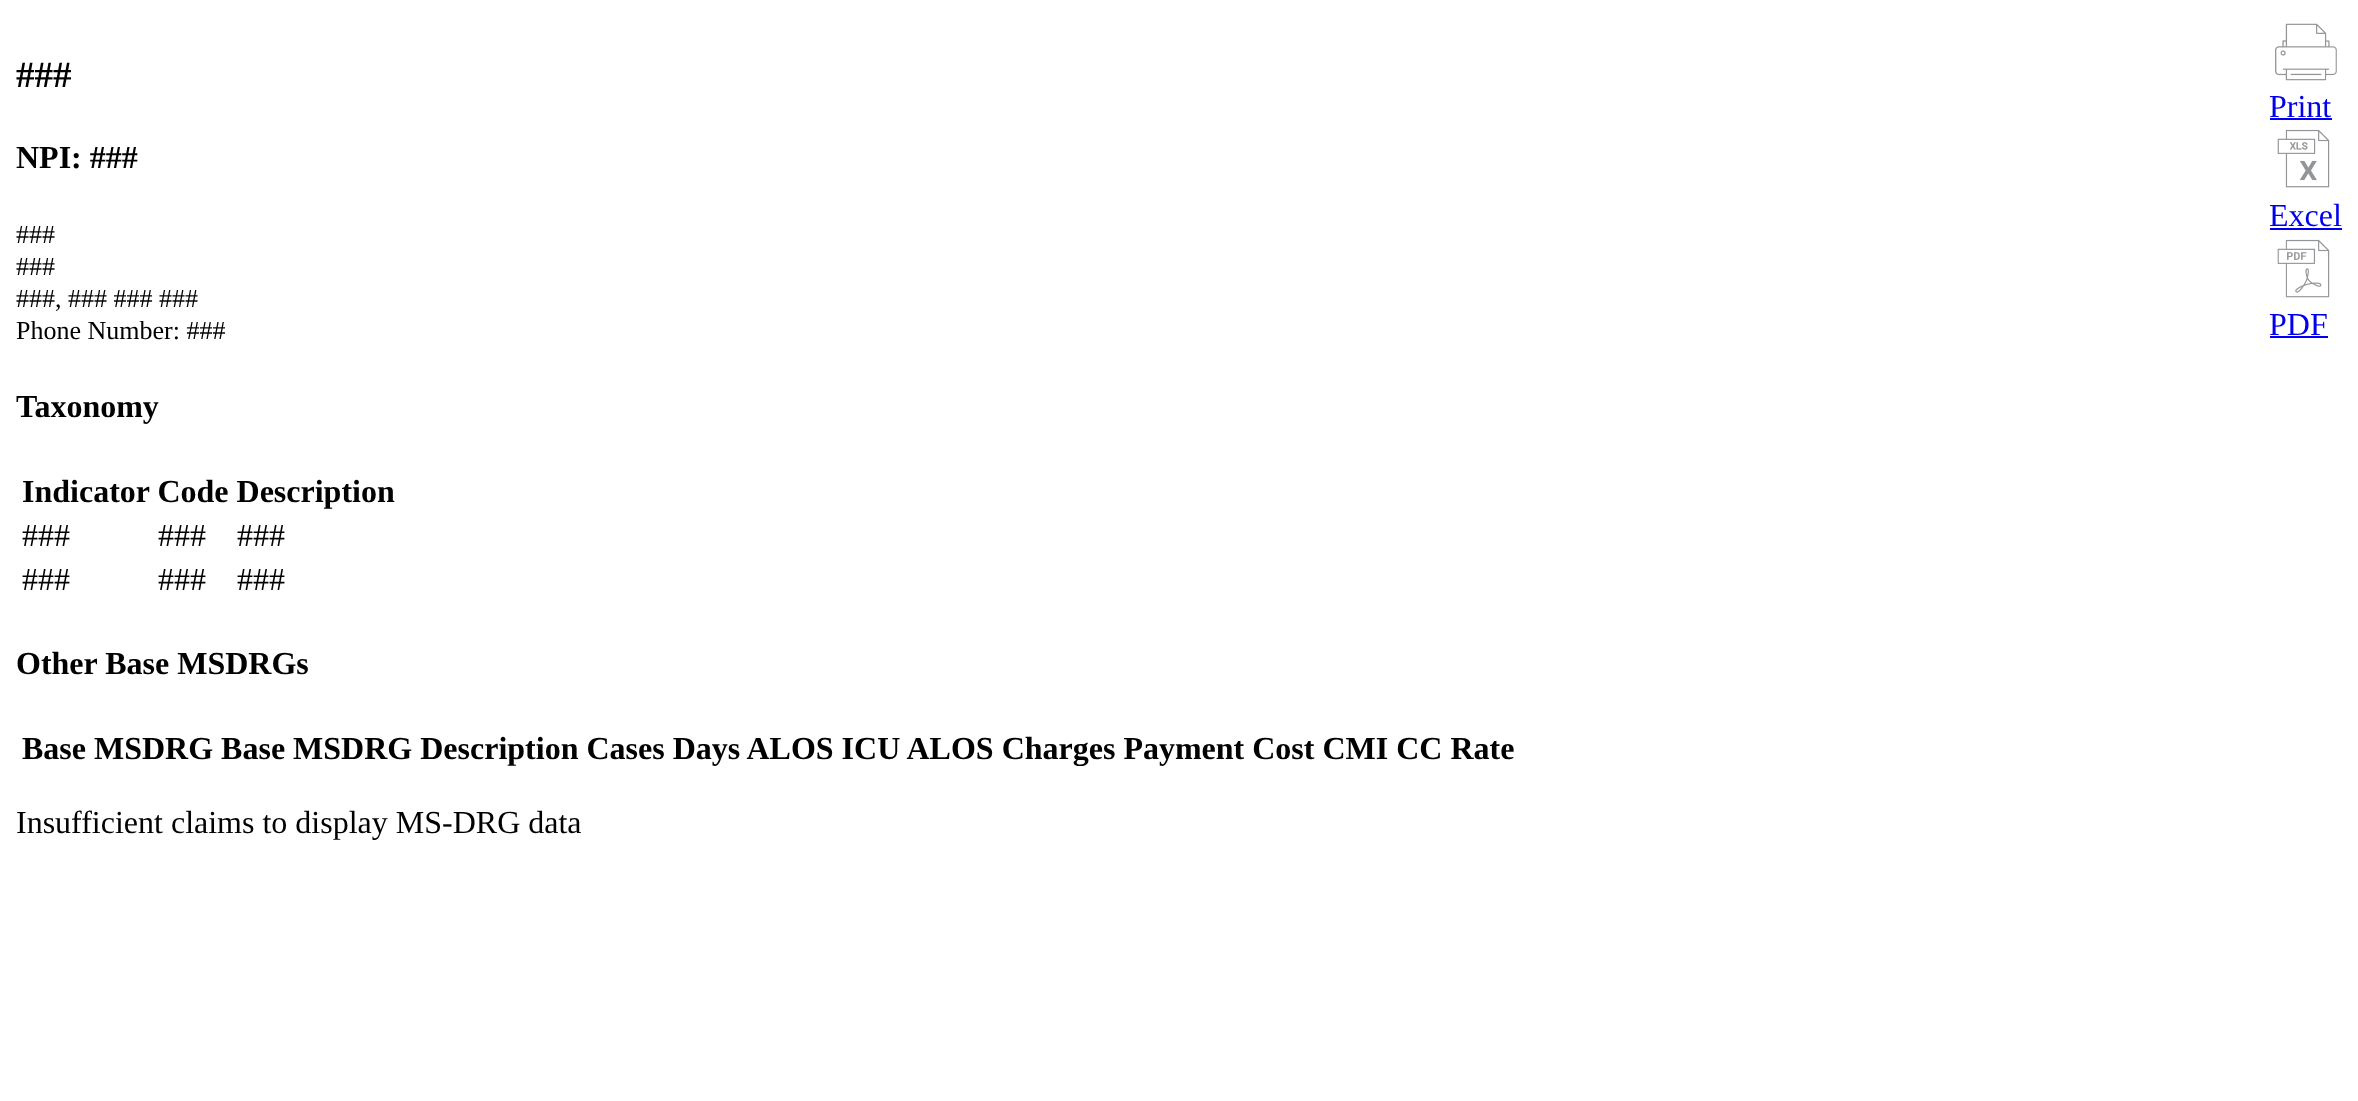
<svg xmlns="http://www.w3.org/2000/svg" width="2358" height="1101">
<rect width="100%" height="100%" fill="#fff"/>
<text x="16" y="87" style="font-family:Liberation Serif;font-size:37px;font-weight:bold;fill:#000">###</text>
<text x="16" y="168" style="font-family:Liberation Serif;font-size:32px;font-weight:bold;fill:#000">NPI: ###</text>
<text x="16" y="243" style="font-family:Liberation Serif;font-size:26px;fill:#000">###</text>
<text x="16" y="275" style="font-family:Liberation Serif;font-size:26px;fill:#000">###</text>
<text x="16" y="307" style="font-family:Liberation Serif;font-size:26px;fill:#000">###, ### ### ###</text>
<text x="16" y="339" style="font-family:Liberation Serif;font-size:26px;fill:#000">Phone Number: ###</text>
<image x="2275" y="23" width="62" height="58" href="media/1.png"/>
<text x="2269" y="117" style="font-family:Liberation Serif;font-size:32px;fill:#00e">Print</text>
<rect x="2270" y="118" width="62" height="2" fill="#00e"/>
<image x="2277" y="129" width="53" height="59" href="media/2.png"/>
<text x="2269" y="226" style="font-family:Liberation Serif;font-size:32px;fill:#00e">Excel</text>
<rect x="2270" y="228" width="72" height="2" fill="#00e"/>
<image x="2277" y="239" width="53" height="59" href="media/3.png"/>
<text x="2269" y="335" style="font-family:Liberation Serif;font-size:32px;fill:#00e">PDF</text>
<rect x="2270" y="336" width="58" height="2" fill="#00e"/>
<text x="16" y="417" style="font-family:Liberation Serif;font-size:32px;font-weight:bold;fill:#000">Taxonomy</text>
<text x="22" y="502" style="font-family:Liberation Serif;font-size:32px;font-weight:bold;fill:#000">Indicator Code Description</text>
<text x="22" y="546" style="font-family:Liberation Serif;font-size:32px;fill:#000">###</text>
<text x="158" y="546" style="font-family:Liberation Serif;font-size:32px;fill:#000">###</text>
<text x="237" y="546" style="font-family:Liberation Serif;font-size:32px;fill:#000">###</text>
<text x="22" y="590" style="font-family:Liberation Serif;font-size:32px;fill:#000">###</text>
<text x="158" y="590" style="font-family:Liberation Serif;font-size:32px;fill:#000">###</text>
<text x="237" y="590" style="font-family:Liberation Serif;font-size:32px;fill:#000">###</text>
<text x="16" y="674" style="font-family:Liberation Serif;font-size:32px;font-weight:bold;fill:#000">Other Base MSDRGs</text>
<text x="22" y="759" style="font-family:Liberation Serif;font-size:32px;font-weight:bold;fill:#000">Base MSDRG Base MSDRG Description Cases Days ALOS ICU ALOS Charges Payment Cost CMI CC Rate</text>
<text x="16" y="833" style="font-family:Liberation Serif;font-size:32px;fill:#000">Insufficient claims to display MS-DRG data</text>
</svg>
